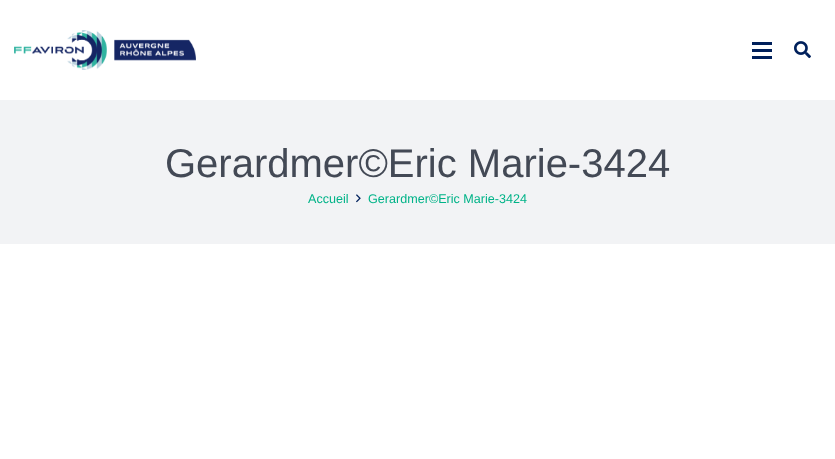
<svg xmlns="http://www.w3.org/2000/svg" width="835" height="459">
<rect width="100%" height="100%" fill="#fff"/>
<image x="14" y="30" width="182" height="40" href="media/1.png"/>
<rect x="752" y="49" width="20" height="3" fill="#00205b"/>
<rect x="752" y="42" width="20" height="3" fill="#00205b"/>
<rect x="752" y="56" width="20" height="3" fill="#00205b"/>
<image x="794" y="41" width="17" height="18" href="media/2.png"/>
<rect y="100" width="835" height="144" fill="#f2f3f5"/>
<text x="165" y="177" style="font-family:Liberation Sans;font-size:40px;fill:#434955">Gerardmer©Eric Marie-3424</text>
<text x="308" y="203" style="font-family:Liberation Sans;font-size:12.6px;fill:#00b388">Accueil</text>
<image x="356" y="194" width="5" height="9" href="media/3.png"/>
<text x="368" y="203" style="font-family:Liberation Sans;font-size:12.6px;fill:#00b388">Gerardmer©Eric Marie-3424</text>
</svg>
